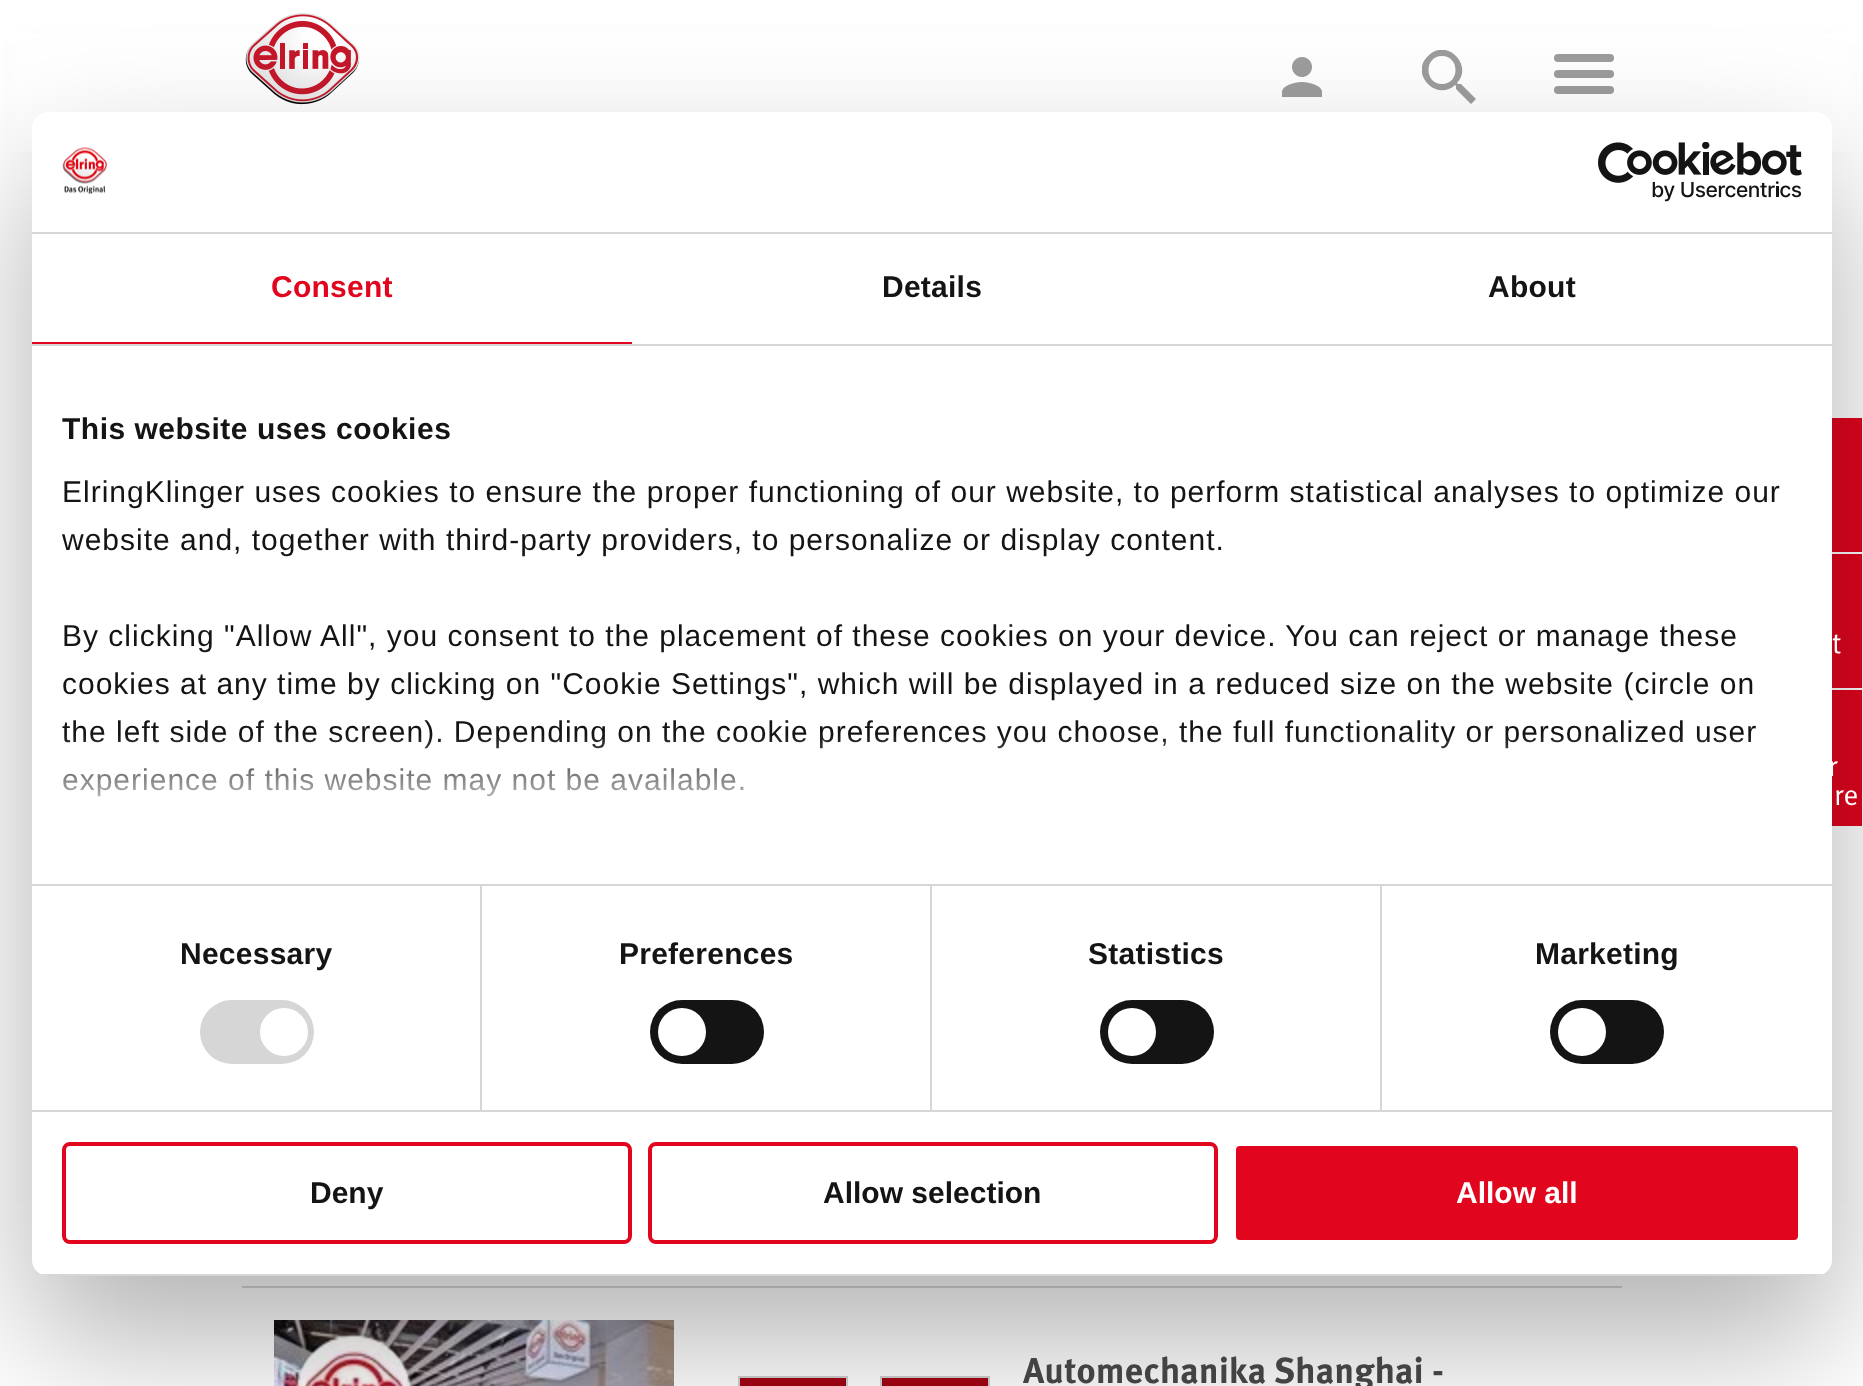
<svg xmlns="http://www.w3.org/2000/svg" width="1863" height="1386">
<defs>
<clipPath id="clip1"><rect x="1422" y="50" width="54" height="54"/></clipPath>
<linearGradient id="g1" gradientUnits="userSpaceOnUse" x1="919" y1="884" x2="919" y2="734"><stop offset="0" stop-color="#fff"/><stop offset="0.5" stop-color="#fff" stop-opacity="0.8"/><stop offset="1" stop-color="#fff" stop-opacity="0"/></linearGradient>
<clipPath id="clip2"><rect x="32" y="112" width="1800" height="1164" rx="16"/></clipPath>
</defs>
<rect width="100%" height="100%" fill="#fff"/>
<rect x="20" y="40" width="1824" height="112" fill="#f5f5f5" filter="blur(10px)"/>
<rect x="13" y="33" width="1838" height="119" fill="#fff"/>
<image x="245" y="13" width="115" height="92" href="media/3.png"/>
<image x="1282" y="57" width="40" height="40" href="media/4.png"/>
<g clip-path="url(#clip1)">
<path d="M1461 84h-3l-1-1c17-18-11-46-29-27c-19 18 9 46 27 29l1 1v3l15 15l5-5zm-19 0c-18 0-18-28 0-28c18 0 18 28 0 28z" fill="#9d9d9d"/>
</g>
<rect x="1554" y="70" width="60" height="8" rx="4" fill="#9d9d9d"/>
<rect x="1554" y="54" width="60" height="8" rx="4" fill="#9d9d9d"/>
<rect x="1554" y="86" width="60" height="8" rx="4" fill="#9d9d9d"/>
<rect x="1832" y="418" width="30" height="408" fill="#e1051e"/>
<rect x="1832" y="552" width="30" height="2" fill="#fff"/>
<rect x="1832" y="688" width="30" height="2" fill="#fff"/>
<rect x="242" y="1286" width="1380" height="2" fill="#d7d7d5"/>
<image x="274" y="1320" width="400" height="66" href="media/5.png"/>
<rect x="739" y="1377" width="108" height="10" fill="none" stroke="#d0d0d1" stroke-width="2"/>
<rect x="740" y="1378" width="106" height="8" fill="#a50413"/>
<rect x="881" y="1377" width="108" height="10" fill="none" stroke="#d0d0d1" stroke-width="2"/>
<rect x="882" y="1378" width="106" height="8" fill="#a50413"/>
<rect x="32" y="176" width="1800" height="1164" rx="16" fill="#0000004d" filter="blur(68px)"/>
<rect x="32" y="112" width="1800" height="1164" rx="16" fill="#fff"/>
<rect x="32" y="232" width="1800" height="2" fill="#d6d6d6"/>
<image x="62" y="147" width="45" height="47" href="media/1.png"/>
<image x="1598" y="142" width="204" height="60" href="media/2.png"/>
<rect x="32" y="344" width="1800" height="2" fill="#d6d6d6"/>
<rect x="32" y="342" width="600" height="2" fill="#e1051e"/>
<text x="271" y="297" style="font-family:Liberation Sans;font-size:30px;font-weight:bold;letter-spacing:0.25px;fill:#e1051e">Consent</text>
<text x="882" y="297" style="font-family:Liberation Sans;font-size:30px;font-weight:bold;letter-spacing:0.25px;fill:#141414">Details</text>
<text x="1488" y="297" style="font-family:Liberation Sans;font-size:30px;font-weight:bold;letter-spacing:0.25px;fill:#141414">About</text>
<rect x="32" y="884" width="1800" height="2" fill="#d6d6d6"/>
<text x="62" y="439" style="font-family:Liberation Sans;font-size:30px;font-weight:bold;letter-spacing:0.5px;fill:#141414">This website uses cookies</text>
<text x="62" y="502" style="font-family:Liberation Sans;font-size:30px;letter-spacing:1px;fill:#141414">ElringKlinger uses cookies to ensure the proper functioning of our website, to perform statistical analyses to optimize our</text>
<text x="62" y="550" style="font-family:Liberation Sans;font-size:30px;letter-spacing:1px;fill:#141414">website and, together with third-party providers, to personalize or display content.</text>
<text x="62" y="646" style="font-family:Liberation Sans;font-size:30px;letter-spacing:1px;fill:#141414">By clicking "Allow All", you consent to the placement of these cookies on your device. You can reject or manage these</text>
<text x="62" y="694" style="font-family:Liberation Sans;font-size:30px;letter-spacing:1px;fill:#141414">cookies at any time by clicking on "Cookie Settings", which will be displayed in a reduced size on the website (circle on</text>
<text x="62" y="742" style="font-family:Liberation Sans;font-size:30px;letter-spacing:1px;fill:#141414">the left side of the screen). Depending on the cookie preferences you choose, the full functionality or personalized user</text>
<text x="62" y="790" style="font-family:Liberation Sans;font-size:30px;letter-spacing:1px;fill:#141414">experience of this website may not be available.</text>
<rect x="63" y="736" width="1688" height="61" fill="url(#g1)"/>
<rect x="32" y="1110" width="1800" height="2" fill="#d6d6d6"/>
<rect x="480" y="886" width="2" height="224" fill="#d6d6d6"/>
<text x="180" y="964" style="font-family:Liberation Sans;font-size:30px;font-weight:bold;letter-spacing:0.25px;fill:#141414">Necessary</text>
<rect x="200" y="1000" width="114" height="64" rx="32" fill="#d6d6d6"/>
<circle cx="284" cy="1032" r="24" fill="#fff"/>
<rect x="930" y="886" width="2" height="224" fill="#d6d6d6"/>
<text x="619" y="964" style="font-family:Liberation Sans;font-size:30px;font-weight:bold;letter-spacing:0.25px;fill:#141414">Preferences</text>
<rect x="650" y="1000" width="114" height="64" rx="32" fill="#141414"/>
<circle cx="682" cy="1032" r="24" fill="#fff"/>
<rect x="1380" y="886" width="2" height="224" fill="#d6d6d6"/>
<text x="1088" y="964" style="font-family:Liberation Sans;font-size:30px;font-weight:bold;letter-spacing:0.25px;fill:#141414">Statistics</text>
<rect x="1100" y="1000" width="114" height="64" rx="32" fill="#141414"/>
<circle cx="1132" cy="1032" r="24" fill="#fff"/>
<text x="1535" y="964" style="font-family:Liberation Sans;font-size:30px;font-weight:bold;letter-spacing:0.25px;fill:#141414">Marketing</text>
<rect x="1550" y="1000" width="114" height="64" rx="32" fill="#141414"/>
<circle cx="1582" cy="1032" r="24" fill="#fff"/>
<g clip-path="url(#clip2)">
<rect x="32" y="1274" width="1800" height="2" fill="#d6d6d6"/>
</g>
<rect x="64" y="1144" width="566" height="98" rx="6" fill="none" stroke="#e1051e" stroke-width="4"/>
<text x="310" y="1203" style="font-family:Liberation Sans;font-size:30px;font-weight:bold;fill:#141414">Deny</text>
<rect x="650" y="1144" width="566" height="98" rx="6" fill="none" stroke="#e1051e" stroke-width="4"/>
<text x="823" y="1203" style="font-family:Liberation Sans;font-size:30px;font-weight:bold;fill:#141414">Allow selection</text>
<rect x="1234" y="1144" width="566" height="98" rx="6" fill="#e1051e" stroke="#fff" stroke-width="4"/>
<text x="1456" y="1203" style="font-family:Liberation Sans;font-size:30px;font-weight:bold;fill:#fff">Allow all</text>
<text x="1832" y="653" style="font-family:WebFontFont;font-size:29px;fill:#fff">t</text>
<text x="1828" y="776" style="font-family:WebFontFont;font-size:29px;fill:#fff">r</text>
<text x="1834" y="805" style="font-family:WebFontFont;font-size:29px;fill:#fff">re</text>
<text x="1023" y="1383" style="font-family:WebFontFont;font-size:36px;font-weight:bold;fill:#434343">Automechanika Shanghai -</text>
</svg>
